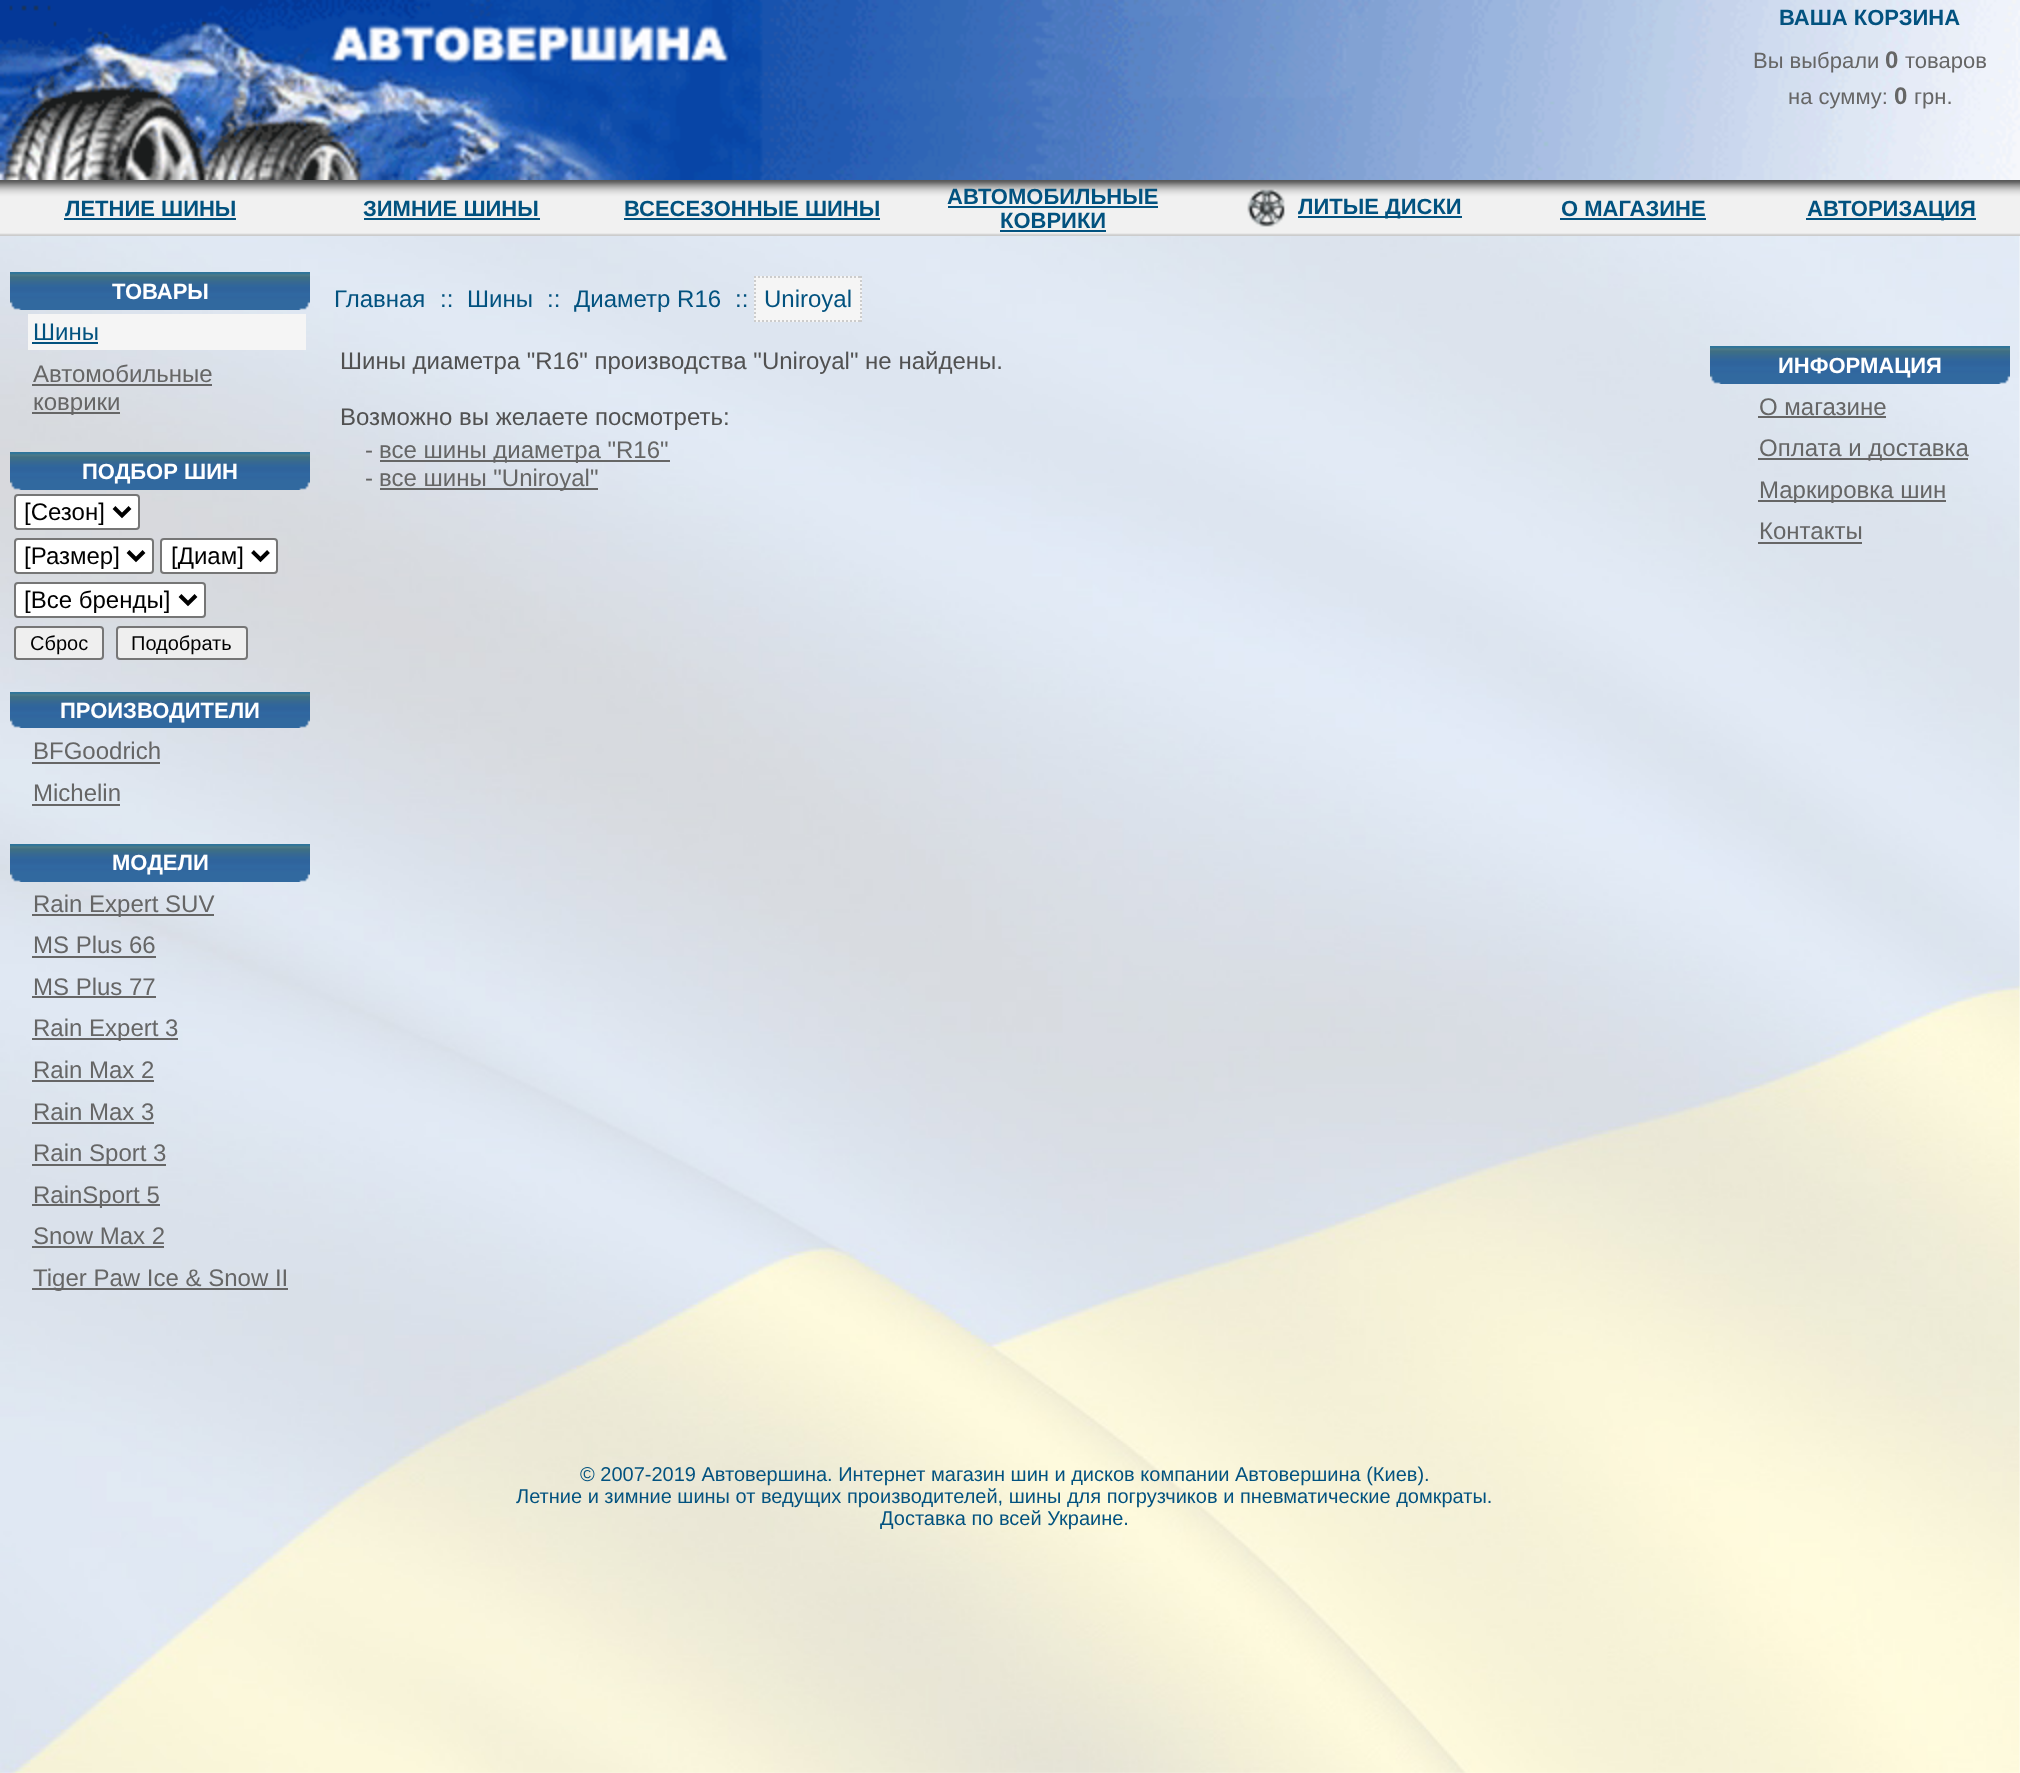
<svg xmlns="http://www.w3.org/2000/svg" width="2020" height="1773">
<rect width="100%" height="100%" fill="#fff"/>
<image x="0" y="236" width="2020" height="1537" href="media/1.png"/>
<image x="0" y="0" width="2020" height="180" href="media/2.png"/>
<text x="1779" y="25" style="font-family:Liberation Sans;font-size:22px;font-weight:bold;fill:#02527f">ВАША КОРЗИНА</text>
<text x="1753" y="68" style="font-family:Liberation Sans;font-size:22px;fill:#666">Вы выбрали</text>
<text x="1885" y="68" style="font-family:Liberation Sans;font-size:24px;font-weight:bold;fill:#666">0</text>
<text x="1905" y="68" style="font-family:Liberation Sans;font-size:22px;fill:#666">товаров</text>
<text x="1788" y="104" style="font-family:Liberation Sans;font-size:22px;fill:#666">на сумму:</text>
<text x="1894" y="104" style="font-family:Liberation Sans;font-size:24px;font-weight:bold;fill:#666">0</text>
<text x="1914" y="104" style="font-family:Liberation Sans;font-size:22px;fill:#666">грн.</text>
<image x="0" y="180" width="2020" height="56" href="media/3.png"/>
<text x="65" y="216" style="font-family:Liberation Sans;font-size:22px;font-weight:bold;fill:#02527f">ЛЕТНИЕ ШИНЫ</text>
<rect x="64" y="218" width="172" height="2" fill="#02527f"/>
<text x="363" y="216" style="font-family:Liberation Sans;font-size:22px;font-weight:bold;fill:#02527f">ЗИМНИЕ ШИНЫ</text>
<rect x="364" y="218" width="176" height="2" fill="#02527f"/>
<text x="624" y="216" style="font-family:Liberation Sans;font-size:22px;font-weight:bold;fill:#02527f">ВСЕСЕЗОННЫЕ ШИНЫ</text>
<rect x="624" y="218" width="256" height="2" fill="#02527f"/>
<text x="947" y="204" style="font-family:Liberation Sans;font-size:22px;font-weight:bold;fill:#02527f">АВТОМОБИЛЬНЫЕ</text>
<rect x="948" y="206" width="210" height="2" fill="#02527f"/>
<text x="1000" y="228" style="font-family:Liberation Sans;font-size:22px;font-weight:bold;fill:#02527f">КОВРИКИ</text>
<rect x="1000" y="230" width="106" height="2" fill="#02527f"/>
<image x="1247" y="189" width="38" height="38" href="media/4.png"/>
<rect x="1298" y="216" width="164" height="2" fill="#02527f"/>
<text x="1298" y="214" style="font-family:Liberation Sans;font-size:22px;font-weight:bold;fill:#02527f">ЛИТЫЕ ДИСКИ</text>
<text x="1561" y="216" style="font-family:Liberation Sans;font-size:22px;font-weight:bold;fill:#02527f">О МАГАЗИНЕ</text>
<rect x="1560" y="218" width="146" height="2" fill="#02527f"/>
<rect x="1806" y="218" width="170" height="2" fill="#02527f"/>
<text x="1807" y="216" style="font-family:Liberation Sans;font-size:22px;font-weight:bold;fill:#02527f">АВТОРИЗАЦИЯ</text>
<image x="10" y="272" width="300" height="38" href="media/5.png"/>
<text x="112" y="299" style="font-family:Liberation Sans;font-size:22px;font-weight:bold;fill:#fff">ТОВАРЫ</text>
<rect x="28" y="314" width="278" height="36" fill="#f5f5f5"/>
<text x="33" y="340" style="font-family:Liberation Sans;font-size:24px;fill:#02527f">Шины</text>
<rect x="32" y="342" width="66" height="2" fill="#02527f"/>
<text x="33" y="382" style="font-family:Liberation Sans;font-size:24px;fill:#666">Автомобильные</text>
<rect x="32" y="384" width="180" height="2" fill="#666"/>
<rect x="32" y="412" width="88" height="2" fill="#666"/>
<text x="33" y="410" style="font-family:Liberation Sans;font-size:24px;fill:#666">коврики</text>
<image x="10" y="452" width="300" height="38" href="media/6.png"/>
<text x="82" y="479" style="font-family:Liberation Sans;font-size:22px;font-weight:bold;fill:#fff">ПОДБОР ШИН</text>
<rect x="15" y="495" width="124" height="34" rx="3" fill="#fff" stroke="#767676" stroke-width="2"/>
<path d="M114 507.5l8 8l8-8" fill="none" stroke="#000" stroke-width="4"/>
<text x="24" y="520" style="font-family:Liberation Sans;font-size:24px;fill:#000">[Сезон]</text>
<rect x="15" y="539" width="138" height="34" rx="3" fill="#fff" stroke="#767676" stroke-width="2"/>
<path d="M128 551.5l8 8l8-8" fill="none" stroke="#000" stroke-width="4"/>
<text x="24" y="564" style="font-family:Liberation Sans;font-size:24px;fill:#000">[Размер]</text>
<rect x="161" y="539" width="116" height="34" rx="3" fill="#fff" stroke="#767676" stroke-width="2"/>
<path d="M252.5 551.5l8 8l8-8" fill="none" stroke="#000" stroke-width="4"/>
<text x="171" y="564" style="font-family:Liberation Sans;font-size:24px;fill:#000">[Диам]</text>
<rect x="15" y="583" width="190" height="34" rx="3" fill="#fff" stroke="#767676" stroke-width="2"/>
<path d="M180 595.5l8 8l8-8" fill="none" stroke="#000" stroke-width="4"/>
<text x="24" y="608" style="font-family:Liberation Sans;font-size:24px;fill:#000">[Все бренды]</text>
<rect x="15" y="627" width="88" height="32" rx="3" fill="#efefef" stroke="#767676" stroke-width="2"/>
<text x="30" y="650" style="font-family:Liberation Sans;font-size:20px;fill:#000">Сброс</text>
<rect x="117" y="627" width="130" height="32" rx="3" fill="#efefef" stroke="#767676" stroke-width="2"/>
<text x="131" y="650" style="font-family:Liberation Sans;font-size:20px;fill:#000">Подобрать</text>
<image x="10" y="692" width="300" height="36" href="media/7.png"/>
<text x="60" y="718" style="font-family:Liberation Sans;font-size:22px;font-weight:bold;fill:#fff">ПРОИЗВОДИТЕЛИ</text>
<text x="33" y="759" style="font-family:Liberation Sans;font-size:24px;fill:#666">BFGoodrich</text>
<rect x="32" y="762" width="128" height="2" fill="#666"/>
<text x="33" y="801" style="font-family:Liberation Sans;font-size:24px;fill:#666">Michelin</text>
<rect x="32" y="804" width="88" height="2" fill="#666"/>
<image x="10" y="844" width="300" height="38" href="media/8.png"/>
<text x="112" y="870" style="font-family:Liberation Sans;font-size:22px;font-weight:bold;fill:#fff">МОДЕЛИ</text>
<rect x="32" y="914" width="182" height="2" fill="#666"/>
<text x="33" y="912" style="font-family:Liberation Sans;font-size:24px;fill:#666">Rain Expert SUV</text>
<text x="33" y="953" style="font-family:Liberation Sans;font-size:24px;fill:#666">MS Plus 66</text>
<rect x="32" y="956" width="124" height="2" fill="#666"/>
<text x="33" y="995" style="font-family:Liberation Sans;font-size:24px;fill:#666">MS Plus 77</text>
<rect x="32" y="996" width="124" height="2" fill="#666"/>
<rect x="32" y="1038" width="146" height="2" fill="#666"/>
<text x="33" y="1036" style="font-family:Liberation Sans;font-size:24px;fill:#666">Rain Expert 3</text>
<text x="33" y="1078" style="font-family:Liberation Sans;font-size:24px;fill:#666">Rain Max 2</text>
<rect x="32" y="1080" width="122" height="2" fill="#666"/>
<text x="33" y="1120" style="font-family:Liberation Sans;font-size:24px;fill:#666">Rain Max 3</text>
<rect x="32" y="1122" width="122" height="2" fill="#666"/>
<rect x="32" y="1164" width="134" height="2" fill="#666"/>
<text x="33" y="1161" style="font-family:Liberation Sans;font-size:24px;fill:#666">Rain Sport 3</text>
<rect x="32" y="1204" width="128" height="2" fill="#666"/>
<text x="33" y="1203" style="font-family:Liberation Sans;font-size:24px;fill:#666">RainSport 5</text>
<text x="33" y="1244" style="font-family:Liberation Sans;font-size:24px;fill:#666">Snow Max 2</text>
<rect x="32" y="1246" width="132" height="2" fill="#666"/>
<rect x="32" y="1288" width="256" height="2" fill="#666"/>
<text x="33" y="1286" style="font-family:Liberation Sans;font-size:24px;fill:#666">Tiger Paw Ice &amp; Snow II</text>
<text x="334" y="307" style="font-family:Liberation Sans;font-size:24px;fill:#02527f">Главная</text>
<text x="440" y="307" style="font-family:Liberation Sans;font-size:24px;fill:#02527f">::</text>
<text x="467" y="307" style="font-family:Liberation Sans;font-size:24px;fill:#02527f">Шины</text>
<text x="547" y="307" style="font-family:Liberation Sans;font-size:24px;fill:#02527f">::</text>
<text x="574" y="307" style="font-family:Liberation Sans;font-size:24px;fill:#02527f">Диаметр R16</text>
<text x="735" y="307" style="font-family:Liberation Sans;font-size:24px;fill:#02527f">::</text>
<rect x="754" y="276" width="108" height="46" fill="#f5f5f5"/>
<text x="764" y="307" style="font-family:Liberation Sans;font-size:24px;fill:#02527f">Uniroyal</text>
<path d="M754 277h108" fill="none" stroke="#ccc" stroke-width="2" stroke-dasharray="2 2"/>
<path d="M861 276v46" fill="none" stroke="#ccc" stroke-width="2" stroke-dasharray="2 2"/>
<path d="M754 321h108" fill="none" stroke="#ccc" stroke-width="2" stroke-dasharray="2 2"/>
<path d="M755 276v46" fill="none" stroke="#ccc" stroke-width="2" stroke-dasharray="2 2"/>
<text x="340" y="369" style="font-family:Liberation Sans;font-size:24px;fill:#515151">Шины диаметра "R16" производства "Uniroyal" не найдены.</text>
<text x="340" y="425" style="font-family:Liberation Sans;font-size:24px;fill:#515151">Возможно вы желаете посмотреть:</text>
<text x="365" y="458" style="font-family:Liberation Sans;font-size:24px;fill:#666">-</text>
<rect x="380" y="460" width="290" height="2" fill="#666"/>
<text x="379" y="458" style="font-family:Liberation Sans;font-size:24px;fill:#666">все шины диаметра "R16"</text>
<text x="365" y="486" style="font-family:Liberation Sans;font-size:24px;fill:#666">-</text>
<rect x="380" y="488" width="218" height="2" fill="#666"/>
<text x="379" y="486" style="font-family:Liberation Sans;font-size:24px;fill:#666">все шины "Uniroyal"</text>
<image x="1710" y="346" width="300" height="38" href="media/9.png"/>
<text x="1778" y="373" style="font-family:Liberation Sans;font-size:22px;font-weight:bold;fill:#fff">ИНФОРМАЦИЯ</text>
<text x="1759" y="415" style="font-family:Liberation Sans;font-size:24px;fill:#666">О магазине</text>
<rect x="1758" y="416" width="128" height="2" fill="#666"/>
<rect x="1758" y="458" width="210" height="2" fill="#666"/>
<text x="1759" y="456" style="font-family:Liberation Sans;font-size:24px;fill:#666">Оплата и доставка</text>
<rect x="1758" y="500" width="188" height="2" fill="#666"/>
<text x="1759" y="498" style="font-family:Liberation Sans;font-size:24px;fill:#666">Маркировка шин</text>
<text x="1759" y="539" style="font-family:Liberation Sans;font-size:24px;fill:#666">Контакты</text>
<rect x="1758" y="542" width="104" height="2" fill="#666"/>
<text x="580" y="1481" style="font-family:Liberation Sans;font-size:20px;fill:#02527f">© 2007-2019 Автовершина. Интернет магазин шин и дисков компании Автовершина (Киев).</text>
<text x="516" y="1503" style="font-family:Liberation Sans;font-size:20px;fill:#02527f">Летние и зимние шины от ведущих производителей, шины для погрузчиков и пневматические домкраты.</text>
<text x="880" y="1525" style="font-family:Liberation Sans;font-size:20px;fill:#02527f">Доставка по всей Украине.</text>
</svg>
